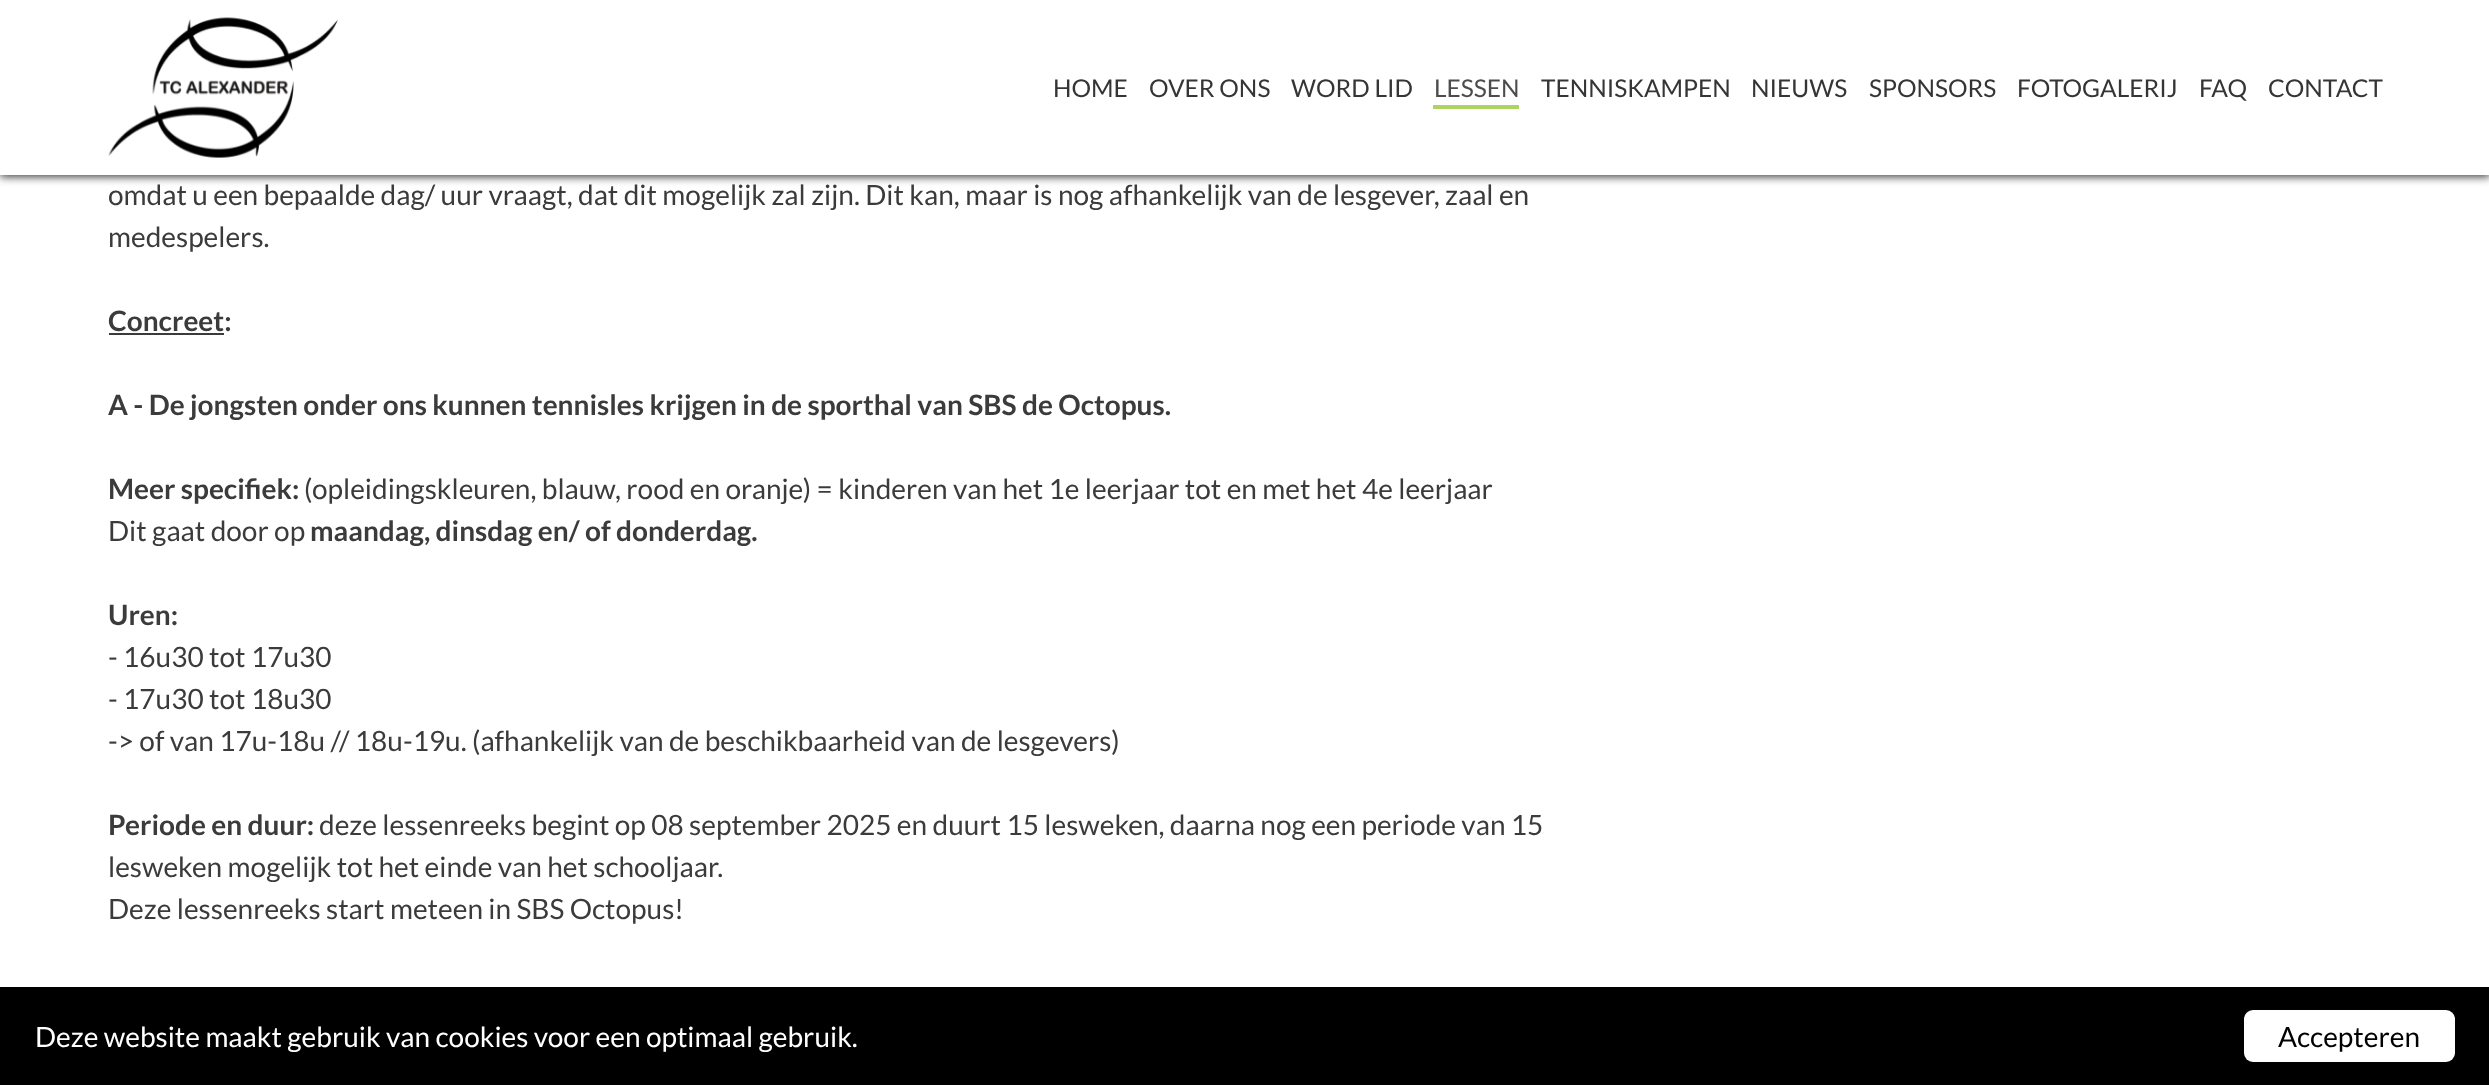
<svg xmlns="http://www.w3.org/2000/svg" width="2489" height="1085">
<rect width="100%" height="100%" fill="#fff"/>
<rect y="2" width="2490" height="175" fill="#000000bf" filter="blur(4.5px)"/>
<rect width="2489" height="175" fill="#fff"/>
<image x="108" y="17" width="230" height="141" href="media/1.png"/>
<text x="1053" y="97" style="font-family:Lato;font-size:24.5px;fill:#353535">HOME</text>
<text x="1149" y="97" style="font-family:Lato;font-size:24.5px;fill:#353535">OVER ONS</text>
<text x="1291" y="97" style="font-family:Lato;font-size:24.5px;fill:#353535">WORD LID</text>
<rect x="1433" y="105" width="86" height="4" fill="#afd360"/>
<text x="1434" y="97" style="font-family:Lato;font-size:24.5px;fill:#4c4c4c">LESSEN</text>
<text x="1541" y="97" style="font-family:Lato;font-size:24.5px;fill:#353535">TENNISKAMPEN</text>
<text x="1751" y="97" style="font-family:Lato;font-size:24.5px;fill:#353535">NIEUWS</text>
<text x="1869" y="97" style="font-family:Lato;font-size:24.5px;fill:#353535">SPONSORS</text>
<text x="2017" y="97" style="font-family:Lato;font-size:24.5px;fill:#353535">FOTOGALERIJ</text>
<text x="2199" y="97" style="font-family:Lato;font-size:24.5px;fill:#353535">FAQ</text>
<text x="2268" y="97" style="font-family:Lato;font-size:24.5px;fill:#353535">CONTACT</text>
<text x="108" y="205" style="font-family:Lato;font-size:28px;fill:#3b3b3b">omdat u een bepaalde dag/ uur vraagt, dat dit mogelijk zal zijn. Dit kan, maar is nog afhankelijk van de lesgever, zaal en</text>
<text x="108" y="247" style="font-family:Lato;font-size:28px;fill:#3b3b3b">medespelers.</text>
<text x="108" y="331" style="font-family:Lato;font-size:28px;font-weight:bold;fill:#3b3b3b">Concreet:</text>
<rect x="109" y="333" width="115" height="2" fill="#3b3b3b"/>
<text x="108" y="415" style="font-family:Lato;font-size:28px;font-weight:bold;fill:#3b3b3b">A - De jongsten onder ons kunnen tennisles krijgen in de sporthal van SBS de Octopus.</text>
<text x="108" y="499" style="font-family:Lato;font-size:28px;font-weight:bold;fill:#3b3b3b">Meer specifiek:</text>
<text x="304" y="499" style="font-family:Lato;font-size:28px;fill:#3b3b3b">(opleidingskleuren, blauw, rood en oranje) = kinderen van het 1e leerjaar tot en met het 4e leerjaar</text>
<text x="108" y="541" style="font-family:Lato;font-size:28px;fill:#3b3b3b">Dit gaat door op</text>
<text x="310" y="541" style="font-family:Lato;font-size:28px;font-weight:bold;fill:#3b3b3b">maandag, dinsdag en/ of donderdag.</text>
<text x="108" y="625" style="font-family:Lato;font-size:28px;font-weight:bold;fill:#3b3b3b">Uren:</text>
<text x="108" y="667" style="font-family:Lato;font-size:28px;fill:#3b3b3b">- 16u30 tot 17u30</text>
<text x="108" y="709" style="font-family:Lato;font-size:28px;fill:#3b3b3b">- 17u30 tot 18u30</text>
<text x="108" y="751" style="font-family:Lato;font-size:28px;fill:#3b3b3b">-&gt; of van 17u-18u // 18u-19u. (afhankelijk van de beschikbaarheid van de lesgevers)</text>
<text x="108" y="835" style="font-family:Lato;font-size:28px;font-weight:bold;fill:#3b3b3b">Periode en duur:</text>
<text x="319" y="835" style="font-family:Lato;font-size:28px;fill:#3b3b3b">deze lessenreeks begint op 08 september 2025 en duurt 15 lesweken, daarna nog een periode van 15</text>
<text x="108" y="877" style="font-family:Lato;font-size:28px;fill:#3b3b3b">lesweken mogelijk tot het einde van het schooljaar.</text>
<text x="108" y="919" style="font-family:Lato;font-size:28px;fill:#3b3b3b">Deze lessenreeks start meteen in SBS Octopus!</text>
<rect y="987" width="2489" height="98" fill="#000"/>
<text x="35" y="1047" style="font-family:Lato;font-size:28px;fill:#fff">Deze website maakt gebruik van cookies voor een optimaal gebruik.</text>
<rect x="2244" y="1010" width="211" height="52" rx="9" fill="#fff"/>
<text x="2278" y="1047" style="font-family:Lato;font-size:28px;fill:#000">Accepteren</text>
</svg>
